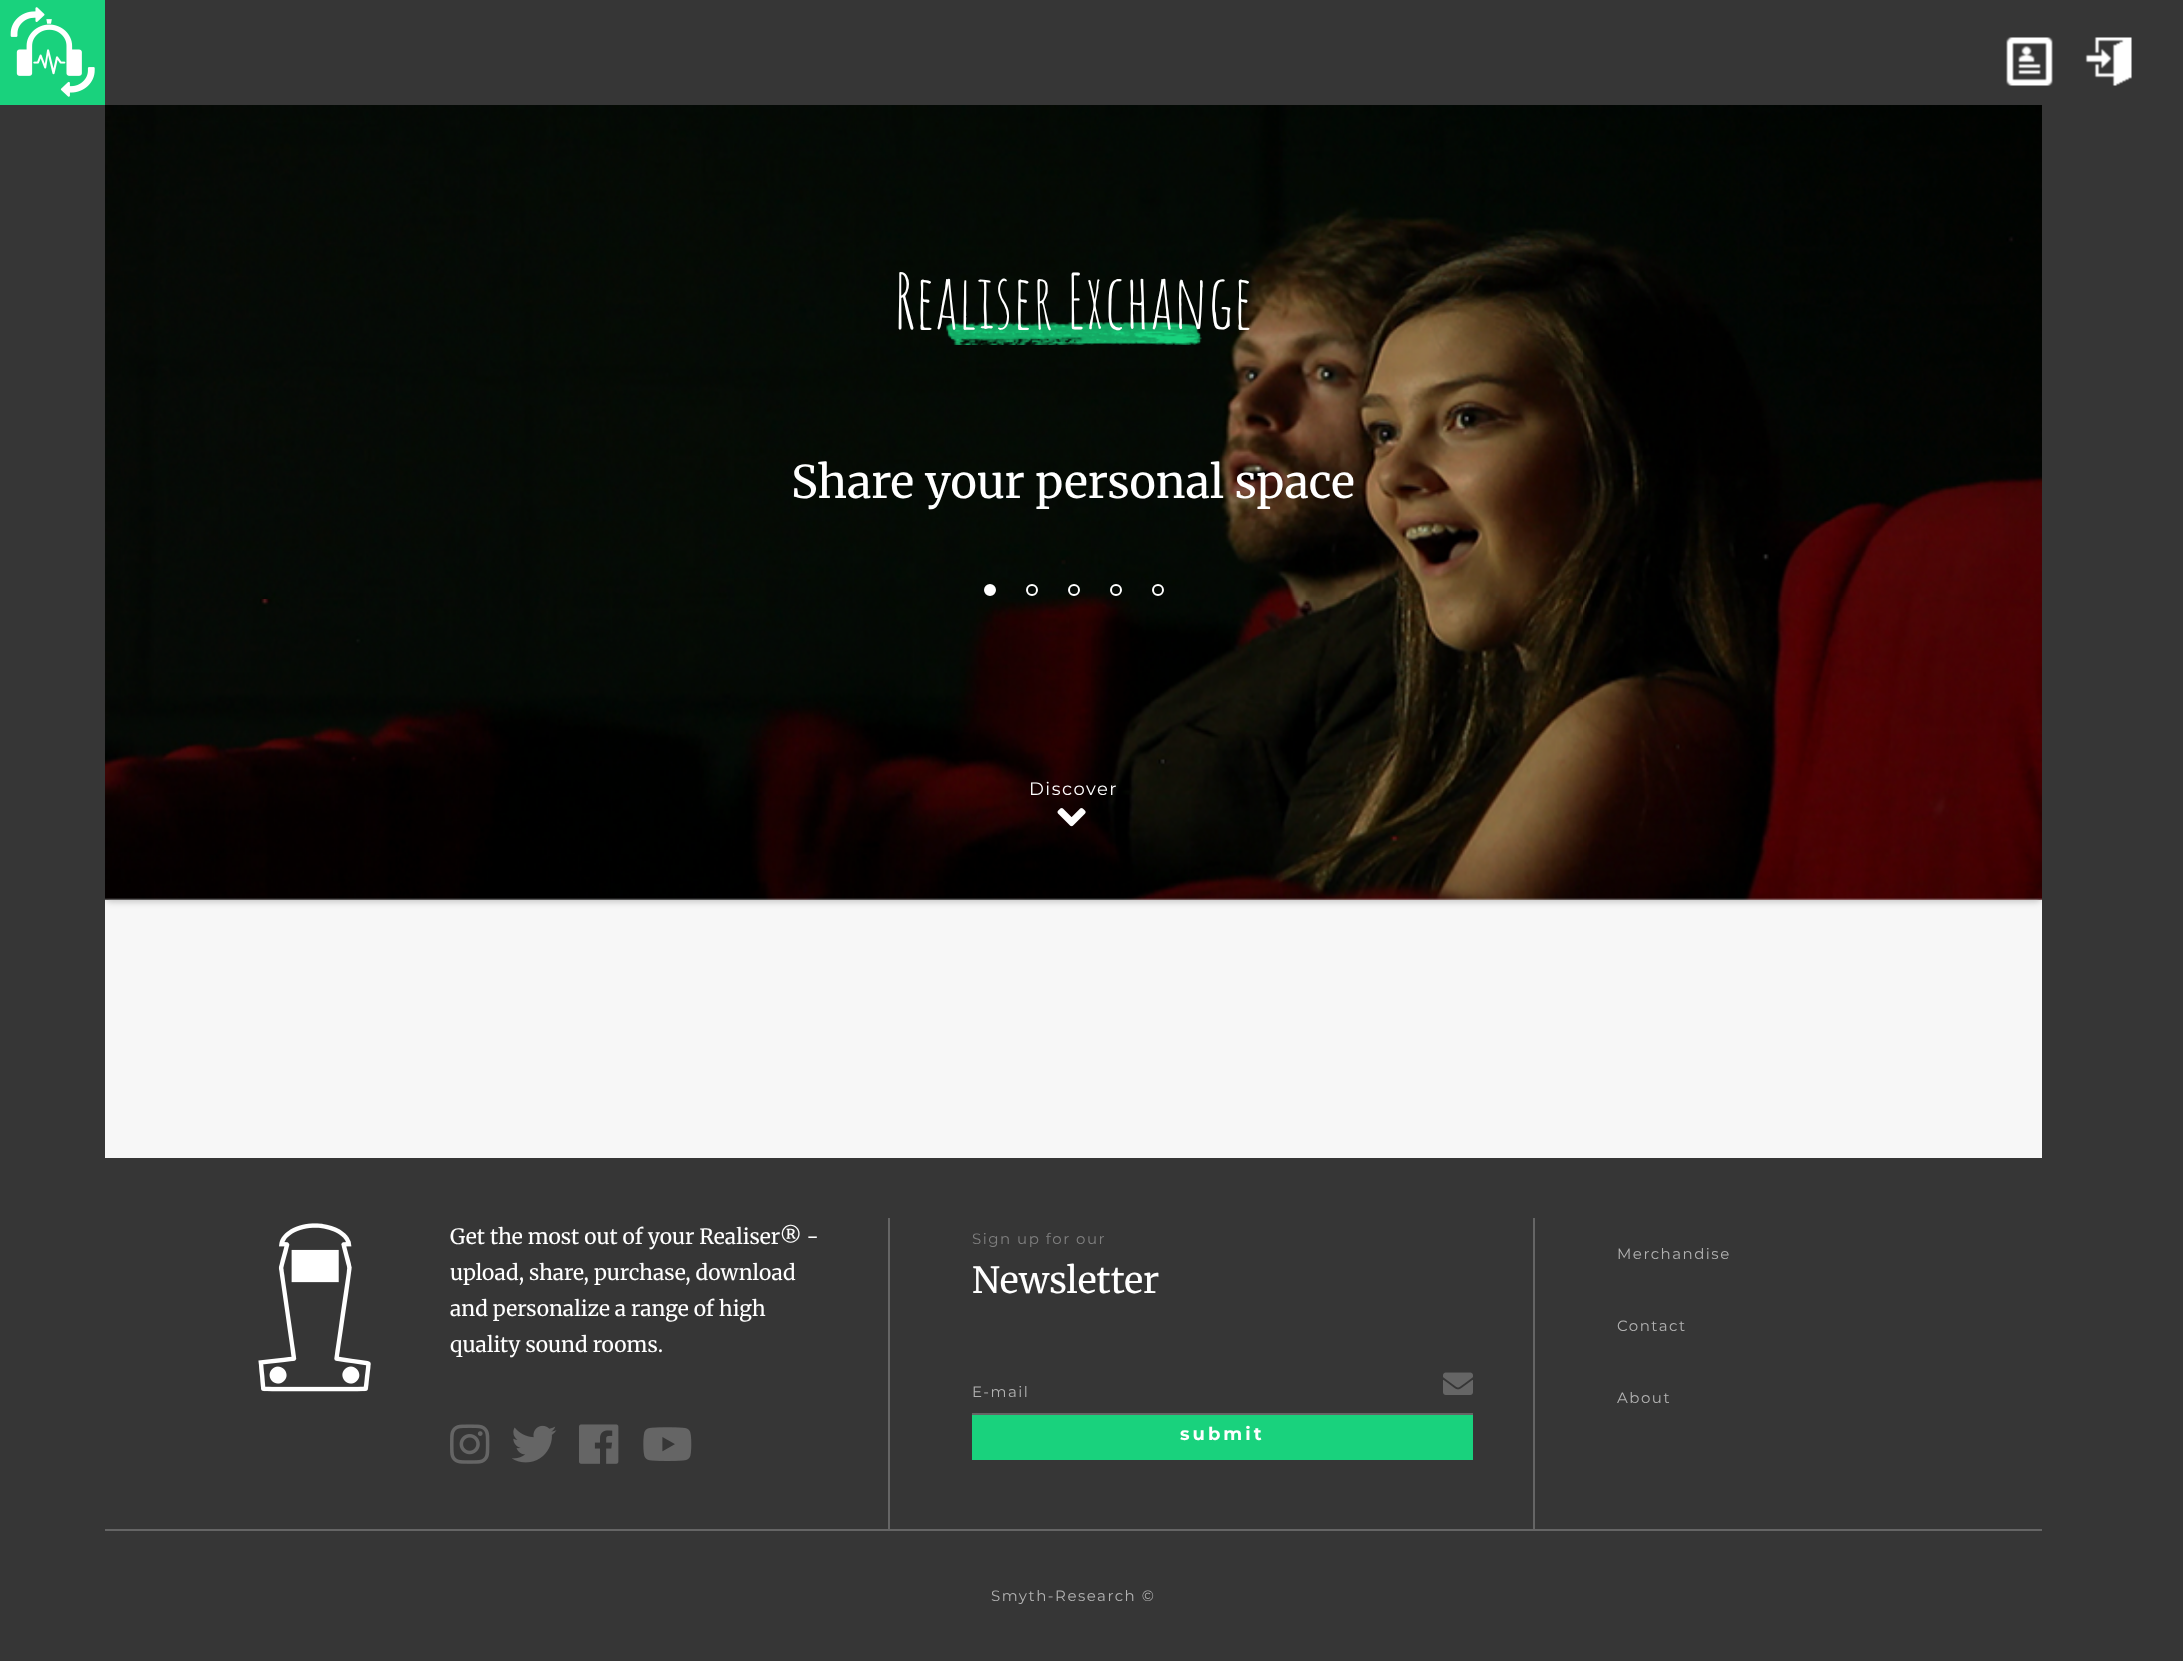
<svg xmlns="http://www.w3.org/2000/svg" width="2183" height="1661">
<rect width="100%" height="100%" fill="#f7f7f7"/>
<rect x="105" y="107" width="1937" height="795" rx="6" fill="#00000033" filter="blur(3px)"/>
<rect x="105" width="2078" height="105" fill="#363636"/>
<rect width="105" height="105" fill="#19d27d"/>
<image x="10" y="7" width="85" height="90" href="media/1.png"/>
<image x="2006" y="37" width="47" height="49" href="media/2.png"/>
<image x="2085" y="37" width="47" height="49" href="media/3.png"/>
<rect y="105" width="105" height="1556" fill="#363636"/>
<rect x="105" y="105" width="1937" height="795" rx="6" fill="#fff"/>
<image x="105" y="105" width="1937" height="795" href="media/4.png"/>
<image x="946" y="322" width="256" height="23" href="media/5.png"/>
<text x="894" y="329" style="font-family:Amatic SC;font-size:75px;fill:#fff">Realiser Exchange</text>
<text x="791" y="498" style="font-family:Merriweather;font-size:45px;fill:#fff">Share your personal space</text>
<text x="1029" y="795" style="font-family:Montserrat;font-size:18px;letter-spacing:1.5px;fill:#fff">Discover</text>
<image x="1057" y="808" width="29" height="19" href="media/6.png"/>
<circle cx="990" cy="590" r="5" fill="#fff" stroke="#fff" stroke-width="2"/>
<circle cx="1032" cy="590" r="5" fill="none" stroke="#fff" stroke-width="2"/>
<circle cx="1074" cy="590" r="5" fill="none" stroke="#fff" stroke-width="2"/>
<circle cx="1116" cy="590" r="5" fill="none" stroke="#fff" stroke-width="2"/>
<circle cx="1158" cy="590" r="5" fill="none" stroke="#fff" stroke-width="2"/>
<rect x="2042" y="105" width="141" height="1556" fill="#363636"/>
<rect x="105" y="1158" width="1937" height="503" fill="#363636"/>
<image x="258" y="1223" width="113" height="169" href="media/7.png"/>
<rect x="888" y="1218" width="2" height="311" fill="#656565"/>
<text x="450" y="1244" style="font-family:Merriweather;font-size:21px;fill:#fff">Get the most out of your Realiser® -</text>
<text x="450" y="1280" style="font-family:Merriweather;font-size:21px;fill:#fff">upload, share, purchase, download</text>
<text x="450" y="1316" style="font-family:Merriweather;font-size:21px;fill:#fff">and personalize a range of high</text>
<text x="450" y="1352" style="font-family:Merriweather;font-size:21px;fill:#fff">quality sound rooms.</text>
<image x="450" y="1424" width="40" height="40" href="media/8.png"/>
<image x="512" y="1425" width="45" height="38" href="media/9.png"/>
<image x="579" y="1424" width="40" height="40" href="media/10.png"/>
<image x="643" y="1427" width="49" height="34" href="media/11.png"/>
<rect x="1533" y="1218" width="2" height="311" fill="#656565"/>
<text x="972" y="1244" style="font-family:Montserrat;font-size:15px;letter-spacing:1.5px;fill:#808080">Sign up for our</text>
<text x="972" y="1293" style="font-family:Merriweather;font-size:36px;fill:#fff">Newsletter</text>
<rect x="972" y="1413" width="501" height="2" fill="#656565"/>
<text x="972" y="1397" style="font-family:Montserrat;font-size:15px;letter-spacing:1.5px;fill:#b2b2b2">E-mail</text>
<image x="1443" y="1372" width="30" height="23" href="media/12.png"/>
<rect x="972" y="1415" width="501" height="45" fill="#19d27d"/>
<text x="1180" y="1440" style="font-family:Montserrat;font-size:18px;font-weight:bold;letter-spacing:3px;fill:#fff">submit</text>
<text x="1617" y="1259" style="font-family:Montserrat;font-size:15px;letter-spacing:1.5px;fill:#b2b2b2">Merchandise</text>
<text x="1617" y="1331" style="font-family:Montserrat;font-size:15px;letter-spacing:1.5px;fill:#b2b2b2">Contact</text>
<text x="1617" y="1403" style="font-family:Montserrat;font-size:15px;letter-spacing:1.5px;fill:#b2b2b2">About</text>
<rect x="105" y="1529" width="1937" height="2" fill="#656565"/>
<text x="991" y="1601" style="font-family:Montserrat;font-size:15px;letter-spacing:1.5px;fill:#b2b2b2">Smyth-Research ©</text>
</svg>
